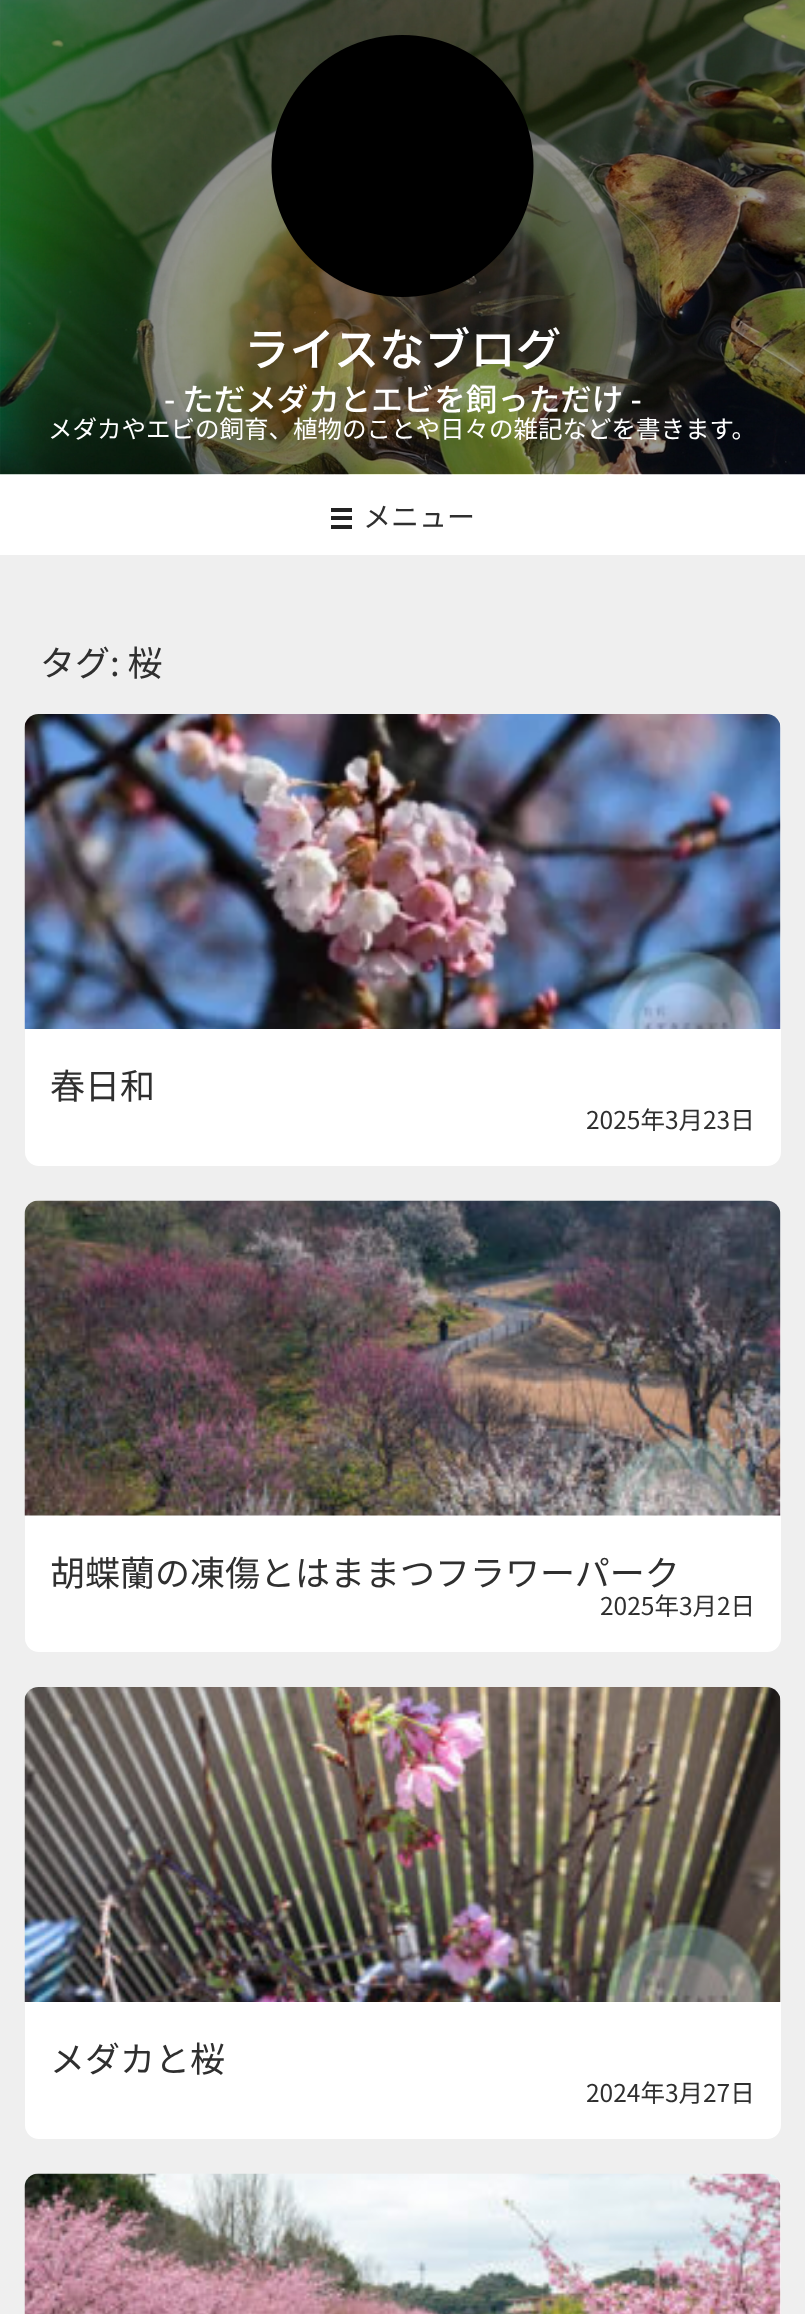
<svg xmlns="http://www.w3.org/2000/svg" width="805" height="2314">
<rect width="100%" height="100%" fill="#efefef"/>
<rect y="474" width="805" height="81" fill="#fff"/>
<image x="0" y="0" width="805" height="475" href="media/1.png"/>
<image x="271" y="35" width="263" height="262" href="media/2.png"/>
<text x="244" y="366" style="font-family:Noto Sans JP;font-size:45.5px;font-weight:500;fill:#fff">ライスなブログ</text>
<text x="164" y="411" style="font-family:Noto Sans JP;font-size:31.5px;font-weight:500;fill:#fff">- ただメダカとエビを飼っただけ -</text>
<text x="48" y="438" style="font-family:Noto Sans JP;font-size:24.5px;fill:#fff">メダカやエビの飼育、植物のことや日々の雑記などを書きます。</text>
<rect x="331" y="508" width="21" height="4" fill="#222"/>
<rect x="331" y="516" width="21" height="4" fill="#222"/>
<rect x="331" y="525" width="21" height="4" fill="#222"/>
<text x="363" y="527" style="font-family:Noto Sans JP;font-size:28px;fill:#2f2f2f">メニュー</text>
<text x="40" y="676" style="font-family:Noto Sans JP;font-size:35px;fill:#2f2f2f">タグ: 桜</text>
<rect x="25" y="714" width="756" height="452" rx="14" fill="#fff"/>
<image x="24" y="714" width="757" height="315" href="media/3.png"/>
<text x="50" y="1099" style="font-family:Noto Sans JP;font-size:35px;fill:#2f2f2f">春日和</text>
<text x="586" y="1129" style="font-family:Noto Sans JP;font-size:24.5px;fill:#2f2f2f">2025年3月23日</text>
<rect x="25" y="1201" width="756" height="451" rx="14" fill="#fff"/>
<image x="24" y="1200" width="757" height="316" href="media/4.png"/>
<text x="50" y="1586" style="font-family:Noto Sans JP;font-size:35px;fill:#2f2f2f">胡蝶蘭の凍傷とはままつフラワーパーク</text>
<text x="600" y="1615" style="font-family:Noto Sans JP;font-size:24.5px;fill:#2f2f2f">2025年3月2日</text>
<rect x="25" y="1687" width="756" height="452" rx="14" fill="#fff"/>
<image x="24" y="1687" width="757" height="315" href="media/5.png"/>
<text x="50" y="2072" style="font-family:Noto Sans JP;font-size:35px;fill:#2f2f2f">メダカと桜</text>
<text x="586" y="2102" style="font-family:Noto Sans JP;font-size:24.5px;fill:#2f2f2f">2024年3月27日</text>
<rect x="25" y="2174" width="756" height="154" rx="14" fill="#fff"/>
<image x="24" y="2173" width="757" height="141" href="media/6.png"/>
</svg>
